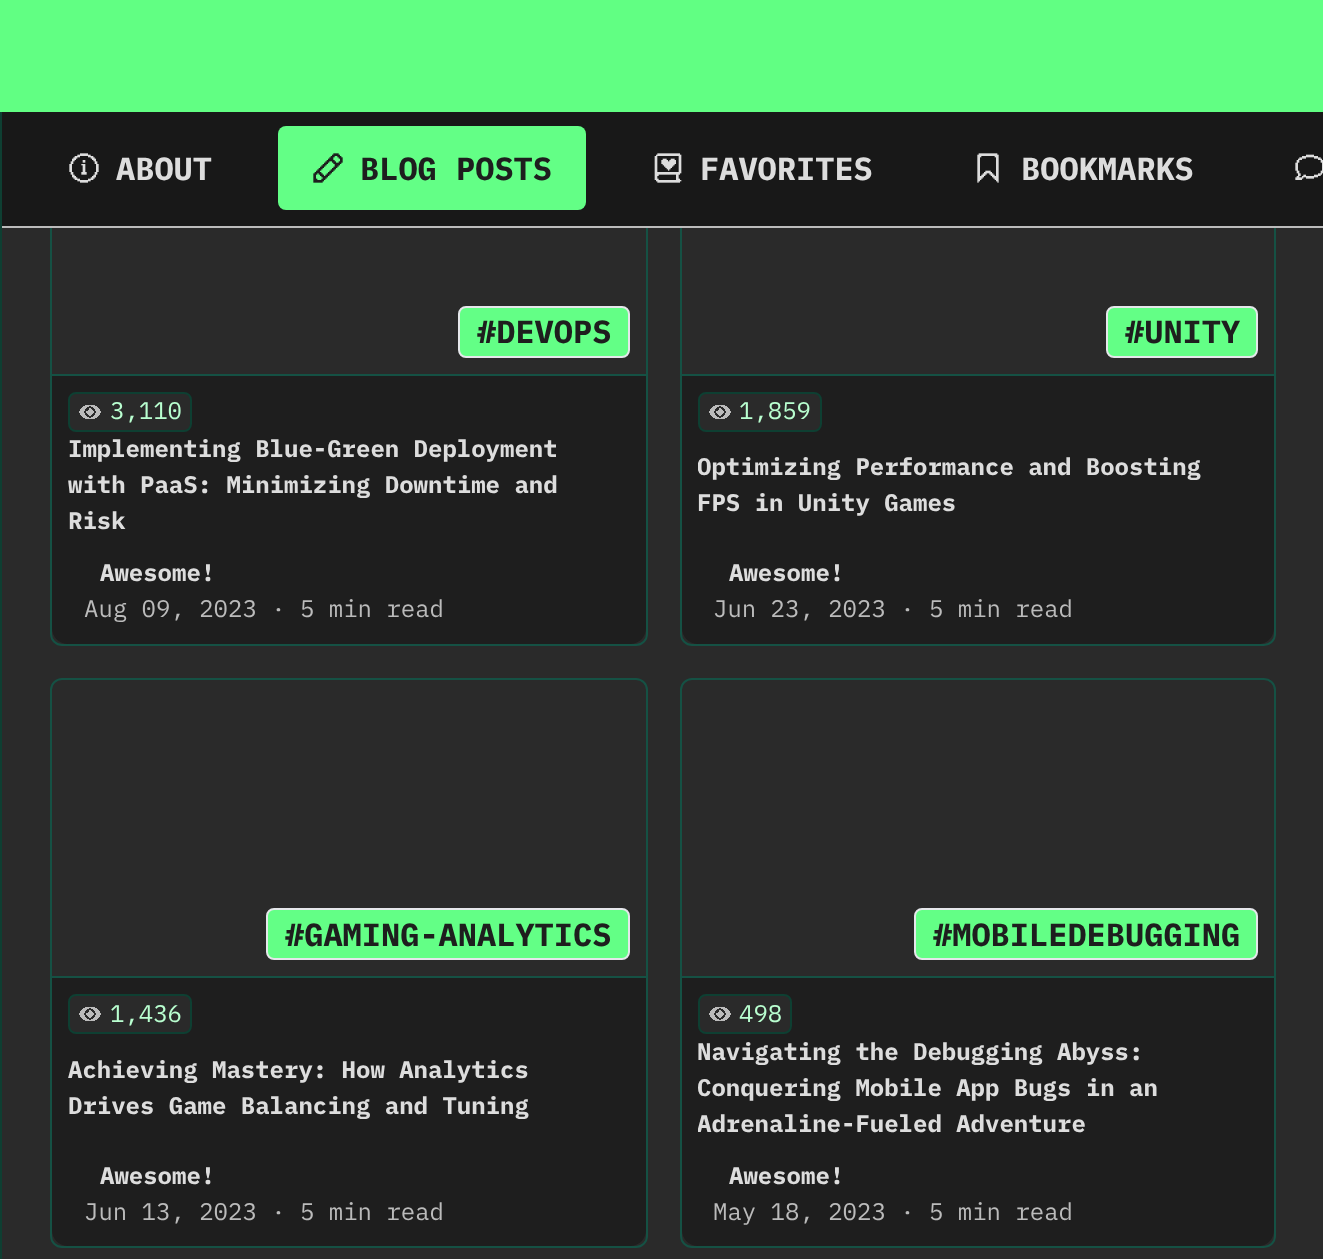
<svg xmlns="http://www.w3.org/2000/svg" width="1323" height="1259">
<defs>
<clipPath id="clip1"><rect x="698" y="450" width="560" height="72"/></clipPath>
<clipPath id="clip2"><rect x="698" y="1034" width="560" height="108"/></clipPath>
</defs>
<rect width="100%" height="100%" fill="#2a2a2a"/>
<rect x="51" y="75" width="596" height="570" rx="11" fill="none" stroke="#155144" stroke-width="2"/>
<rect x="681" y="75" width="594" height="570" rx="11" fill="none" stroke="#155144" stroke-width="2"/>
<rect width="1323" height="112" fill="#61ff83"/>
<rect y="112" width="2" height="1147" fill="#0e3f32"/>
<rect x="2" y="226" width="1321" height="2" fill="#bbb"/>
<rect x="2" y="112" width="1321" height="114" fill="#181818"/>
<image x="69" y="153" width="30" height="30" href="media/1.png"/>
<text x="116" y="180" style="font-family:IBM Plex Mono;font-size:32px;font-weight:bold;fill:#ddd">ABOUT</text>
<rect x="278" y="126" width="308" height="84" rx="8" fill="#63ff86"/>
<image x="313" y="153" width="30" height="30" href="media/2.png"/>
<text x="360" y="180" style="font-family:IBM Plex Mono;font-size:32px;font-weight:bold;fill:#1e1e1e">BLOG POSTS</text>
<image x="654" y="153" width="28" height="30" href="media/3.png"/>
<text x="700" y="180" style="font-family:IBM Plex Mono;font-size:32px;font-weight:bold;fill:#ddd">FAVORITES</text>
<image x="977" y="153" width="22" height="30" href="media/4.png"/>
<text x="1021" y="180" style="font-family:IBM Plex Mono;font-size:32px;font-weight:bold;fill:#ddd">BOOKMARKS</text>
<image x="1295" y="154" width="28" height="26" href="media/5.png"/>
<rect x="459" y="307" width="170" height="50" rx="7" fill="#63ff86" stroke="#e5e7eb" stroke-width="2"/>
<text x="477" y="343" style="font-family:IBM Plex Mono;font-size:32px;font-weight:bold;fill:#1e1e1e">#DEVOPS</text>
<path d="M52 376h594v252c0 9-7 16-16 16h-562c-9 0-16-7-16-16z" fill="#1e1e1e"/>
<rect x="52" y="374" width="594" height="2" fill="#155144"/>
<rect x="69" y="393" width="122" height="38" rx="7" fill="#2a2a2a" stroke="#0e3f32" stroke-width="2"/>
<image x="79" y="405" width="22" height="14" href="media/6.png"/>
<text x="110" y="419" style="font-family:IBM Plex Mono;font-size:24px;fill:#b9ffd0">3,110</text>
<text x="68" y="457" style="font-family:IBM Plex Mono;font-size:24px;font-weight:bold;fill:#ddd">Implementing Blue-Green Deployment</text>
<text x="68" y="493" style="font-family:IBM Plex Mono;font-size:24px;font-weight:bold;fill:#ddd">with PaaS: Minimizing Downtime and</text>
<text x="68" y="529" style="font-family:IBM Plex Mono;font-size:24px;font-weight:bold;fill:#ddd">Risk</text>
<text x="100" y="581" style="font-family:IBM Plex Mono;font-size:24px;font-weight:bold;fill:#ddd">Awesome!</text>
<text x="84" y="617" style="font-family:IBM Plex Mono;font-size:24px;fill:#bbb">Aug 09, 2023 · 5 min read</text>
<rect x="1107" y="307" width="150" height="50" rx="7" fill="#63ff86" stroke="#e5e7eb" stroke-width="2"/>
<text x="1125" y="343" style="font-family:IBM Plex Mono;font-size:32px;font-weight:bold;fill:#1e1e1e">#UNITY</text>
<path d="M682 376h592v252c0 9-7 16-16 16h-560c-9 0-16-7-16-16z" fill="#1e1e1e"/>
<rect x="682" y="374" width="592" height="2" fill="#155144"/>
<rect x="699" y="393" width="122" height="38" rx="7" fill="#2a2a2a" stroke="#0e3f32" stroke-width="2"/>
<image x="709" y="405" width="22" height="14" href="media/6.png"/>
<text x="739" y="419" style="font-family:IBM Plex Mono;font-size:24px;fill:#b9ffd0">1,859</text>
<g clip-path="url(#clip1)">
<text x="697" y="475" style="font-family:IBM Plex Mono;font-size:24px;font-weight:bold;fill:#ddd">Optimizing Performance and Boosting</text>
</g>
<text x="697" y="511" style="font-family:IBM Plex Mono;font-size:24px;font-weight:bold;fill:#ddd">FPS in Unity Games</text>
<text x="729" y="581" style="font-family:IBM Plex Mono;font-size:24px;font-weight:bold;fill:#ddd">Awesome!</text>
<text x="713" y="617" style="font-family:IBM Plex Mono;font-size:24px;fill:#bbb">Jun 23, 2023 · 5 min read</text>
<rect x="51" y="679" width="596" height="568" rx="11" fill="none" stroke="#155144" stroke-width="2"/>
<rect x="267" y="909" width="362" height="50" rx="7" fill="#63ff86" stroke="#e5e7eb" stroke-width="2"/>
<text x="285" y="946" style="font-family:IBM Plex Mono;font-size:32px;font-weight:bold;fill:#1e1e1e">#GAMING-ANALYTICS</text>
<path d="M52 978h594v252c0 9-7 16-16 16h-562c-9 0-16-7-16-16z" fill="#1e1e1e"/>
<rect x="52" y="976" width="594" height="2" fill="#155144"/>
<rect x="69" y="995" width="122" height="38" rx="7" fill="#2a2a2a" stroke="#0e3f32" stroke-width="2"/>
<image x="79" y="1007" width="22" height="14" href="media/6.png"/>
<text x="110" y="1022" style="font-family:IBM Plex Mono;font-size:24px;fill:#b9ffd0">1,436</text>
<text x="68" y="1078" style="font-family:IBM Plex Mono;font-size:24px;font-weight:bold;fill:#ddd">Achieving Mastery: How Analytics</text>
<text x="68" y="1114" style="font-family:IBM Plex Mono;font-size:24px;font-weight:bold;fill:#ddd">Drives Game Balancing and Tuning</text>
<text x="100" y="1184" style="font-family:IBM Plex Mono;font-size:24px;font-weight:bold;fill:#ddd">Awesome!</text>
<text x="84" y="1220" style="font-family:IBM Plex Mono;font-size:24px;fill:#bbb">Jun 13, 2023 · 5 min read</text>
<rect x="681" y="679" width="594" height="568" rx="11" fill="none" stroke="#155144" stroke-width="2"/>
<rect x="915" y="909" width="342" height="50" rx="7" fill="#63ff86" stroke="#e5e7eb" stroke-width="2"/>
<text x="933" y="946" style="font-family:IBM Plex Mono;font-size:32px;font-weight:bold;fill:#1e1e1e">#MOBILEDEBUGGING</text>
<path d="M682 978h592v252c0 9-7 16-16 16h-560c-9 0-16-7-16-16z" fill="#1e1e1e"/>
<rect x="682" y="976" width="592" height="2" fill="#155144"/>
<rect x="699" y="995" width="92" height="38" rx="7" fill="#2a2a2a" stroke="#0e3f32" stroke-width="2"/>
<image x="709" y="1007" width="22" height="14" href="media/6.png"/>
<text x="739" y="1022" style="font-family:IBM Plex Mono;font-size:24px;fill:#b9ffd0">498</text>
<text x="697" y="1060" style="font-family:IBM Plex Mono;font-size:24px;font-weight:bold;fill:#ddd">Navigating the Debugging Abyss:</text>
<text x="697" y="1096" style="font-family:IBM Plex Mono;font-size:24px;font-weight:bold;fill:#ddd">Conquering Mobile App Bugs in an</text>
<g clip-path="url(#clip2)">
<text x="697" y="1132" style="font-family:IBM Plex Mono;font-size:24px;font-weight:bold;fill:#ddd">Adrenaline-Fueled Adventure</text>
</g>
<text x="729" y="1184" style="font-family:IBM Plex Mono;font-size:24px;font-weight:bold;fill:#ddd">Awesome!</text>
<text x="713" y="1220" style="font-family:IBM Plex Mono;font-size:24px;fill:#bbb">May 18, 2023 · 5 min read</text>
</svg>
